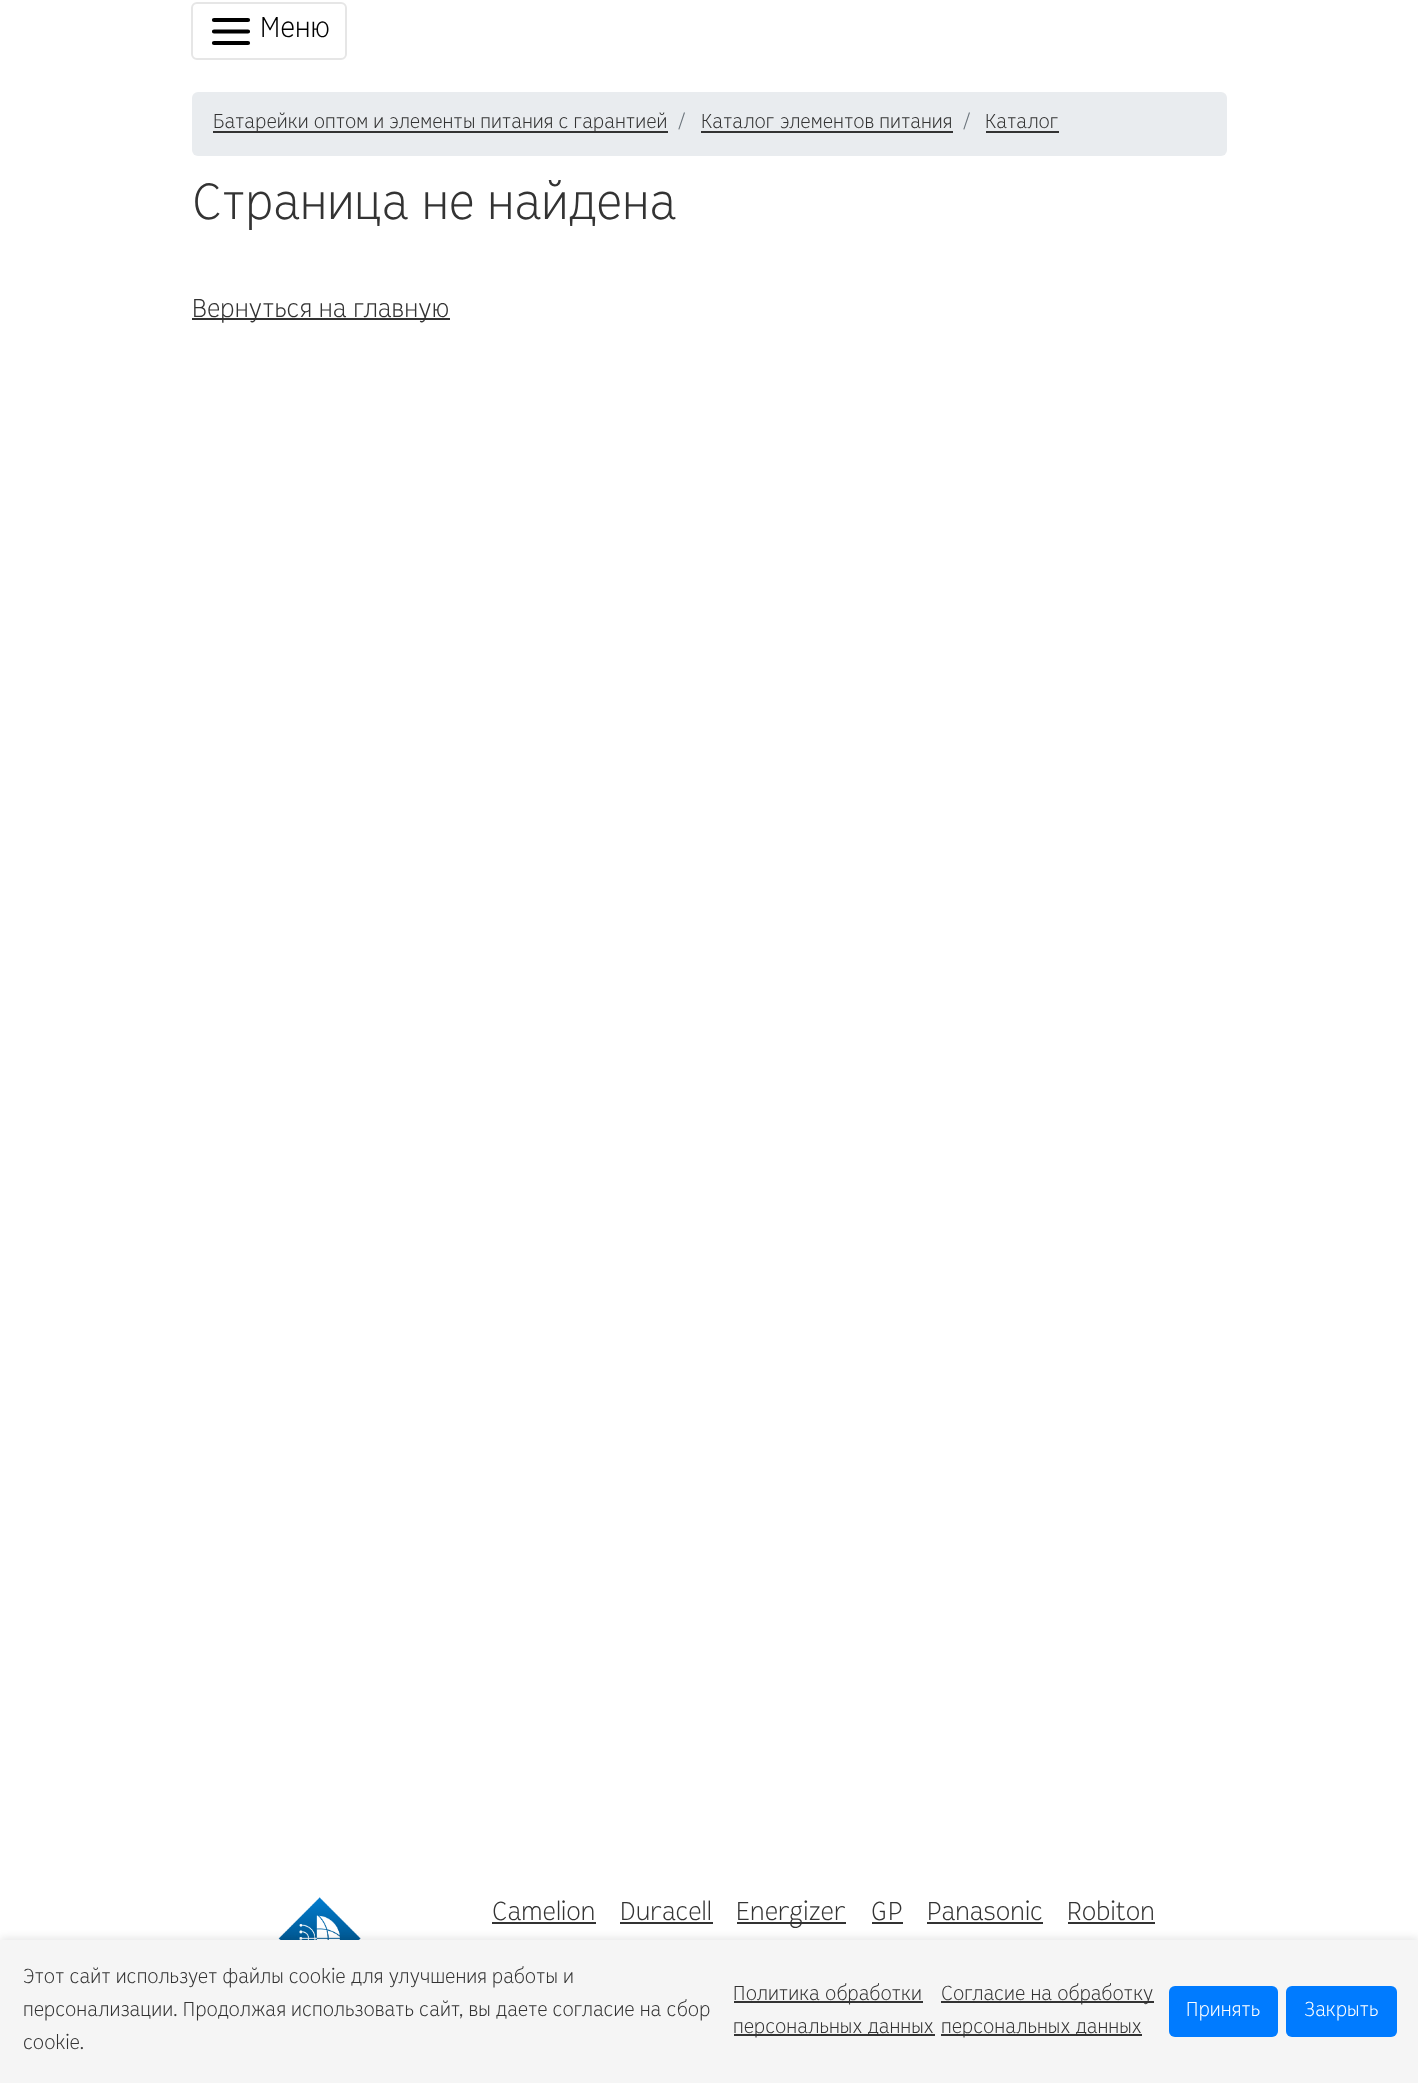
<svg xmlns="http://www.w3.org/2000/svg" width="1418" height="2083">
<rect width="100%" height="100%" fill="#fff"/>
<rect x="192" y="3" width="154" height="56" rx="5" fill="none" stroke="#e6e6e6" stroke-width="2"/>
<path d="M214 20h34m-34 11.5h34m-34 11.5h34" fill="none" stroke="#000" stroke-width="4.2" stroke-linecap="round"/>
<text x="260" y="37" style="font-family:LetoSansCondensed;font-size:30px;font-weight:100;fill:#000">Меню</text>
<rect x="192" y="92" width="1035" height="64" rx="6" fill="#e9ecef"/>
<rect x="213" y="131" width="455" height="2" fill="#333"/>
<text x="213" y="128" style="font-family:LetoSansCondensed;font-size:21px;font-weight:100;fill:#333">Батарейки оптом и элементы питания с гарантией</text>
<text x="678" y="128" style="font-family:LetoSansCondensed;font-size:21px;font-weight:100;fill:#6c757d">/</text>
<text x="701" y="128" style="font-family:LetoSansCondensed;font-size:21px;font-weight:100;fill:#333">Каталог элементов питания</text>
<rect x="701" y="131" width="252" height="2" fill="#333"/>
<text x="963" y="128" style="font-family:LetoSansCondensed;font-size:21px;font-weight:100;fill:#6c757d">/</text>
<text x="985" y="128" style="font-family:LetoSansCondensed;font-size:21px;font-weight:100;fill:#333">Каталог</text>
<rect x="986" y="131" width="73" height="2" fill="#333"/>
<text x="192" y="219" style="font-family:LetoSansCondensed;font-size:52.5px;font-weight:100;fill:#333">Страница не найдена</text>
<rect x="192" y="318" width="258" height="2" fill="#333"/>
<text x="192" y="317" style="font-family:LetoSansCondensed;font-size:27px;font-weight:100;fill:#333">Вернуться на главную</text>
<image x="278" y="1897" width="83" height="43" href="media/1.png"/>
<text x="492" y="1920" style="font-family:LetoSansCondensed;font-size:27px;font-weight:100;fill:#333">Camelion</text>
<rect x="492" y="1922" width="104" height="2" fill="#333"/>
<text x="620" y="1920" style="font-family:LetoSansCondensed;font-size:27px;font-weight:100;fill:#333">Duracell</text>
<rect x="620" y="1922" width="93" height="2" fill="#333"/>
<rect x="737" y="1922" width="109" height="2" fill="#333"/>
<text x="736" y="1920" style="font-family:LetoSansCondensed;font-size:27px;font-weight:100;fill:#333">Energizer</text>
<text x="871" y="1920" style="font-family:LetoSansCondensed;font-size:27px;font-weight:100;fill:#333">GP</text>
<rect x="872" y="1922" width="31" height="2" fill="#333"/>
<text x="927" y="1920" style="font-family:LetoSansCondensed;font-size:27px;font-weight:100;fill:#333">Panasonic</text>
<rect x="927" y="1922" width="116" height="2" fill="#333"/>
<text x="1067" y="1920" style="font-family:LetoSansCondensed;font-size:27px;font-weight:100;fill:#333">Robiton</text>
<rect x="1068" y="1922" width="87" height="2" fill="#333"/>
<rect y="1938" width="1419" height="144" fill="#0000001a" filter="blur(4px)"/>
<rect y="1940" width="1418" height="143" fill="#f5f5f5"/>
<text x="23" y="1983" style="font-family:LetoSansCondensed;font-size:21px;font-weight:100;fill:#333">Этот сайт использует файлы cookie для улучшения работы и</text>
<text x="23" y="2016" style="font-family:LetoSansCondensed;font-size:21px;font-weight:100;fill:#333">персонализации. Продолжая использовать сайт, вы даете согласие на сбор</text>
<text x="23" y="2049" style="font-family:LetoSansCondensed;font-size:21px;font-weight:100;fill:#333">cookie.</text>
<rect x="734" y="2001" width="189" height="2" fill="#333"/>
<text x="733" y="2000" style="font-family:LetoSansCondensed;font-size:21px;font-weight:100;fill:#333">Политика обработки</text>
<rect x="734" y="2034" width="201" height="2" fill="#333"/>
<text x="733" y="2033" style="font-family:LetoSansCondensed;font-size:21px;font-weight:100;fill:#333">персональных данных</text>
<rect x="941" y="2001" width="213" height="2" fill="#333"/>
<text x="941" y="2000" style="font-family:LetoSansCondensed;font-size:21px;font-weight:100;fill:#333">Согласие на обработку</text>
<rect x="941" y="2034" width="201" height="2" fill="#333"/>
<text x="941" y="2033" style="font-family:LetoSansCondensed;font-size:21px;font-weight:100;fill:#333">персональных данных</text>
<rect x="1169" y="1986" width="109" height="51" rx="6" fill="#007bff"/>
<text x="1186" y="2016" style="font-family:LetoSansCondensed;font-size:21px;font-weight:100;fill:#fff">Принять</text>
<rect x="1286" y="1986" width="111" height="51" rx="6" fill="#007bff"/>
<text x="1304" y="2016" style="font-family:LetoSansCondensed;font-size:21px;font-weight:100;fill:#fff">Закрыть</text>
</svg>
